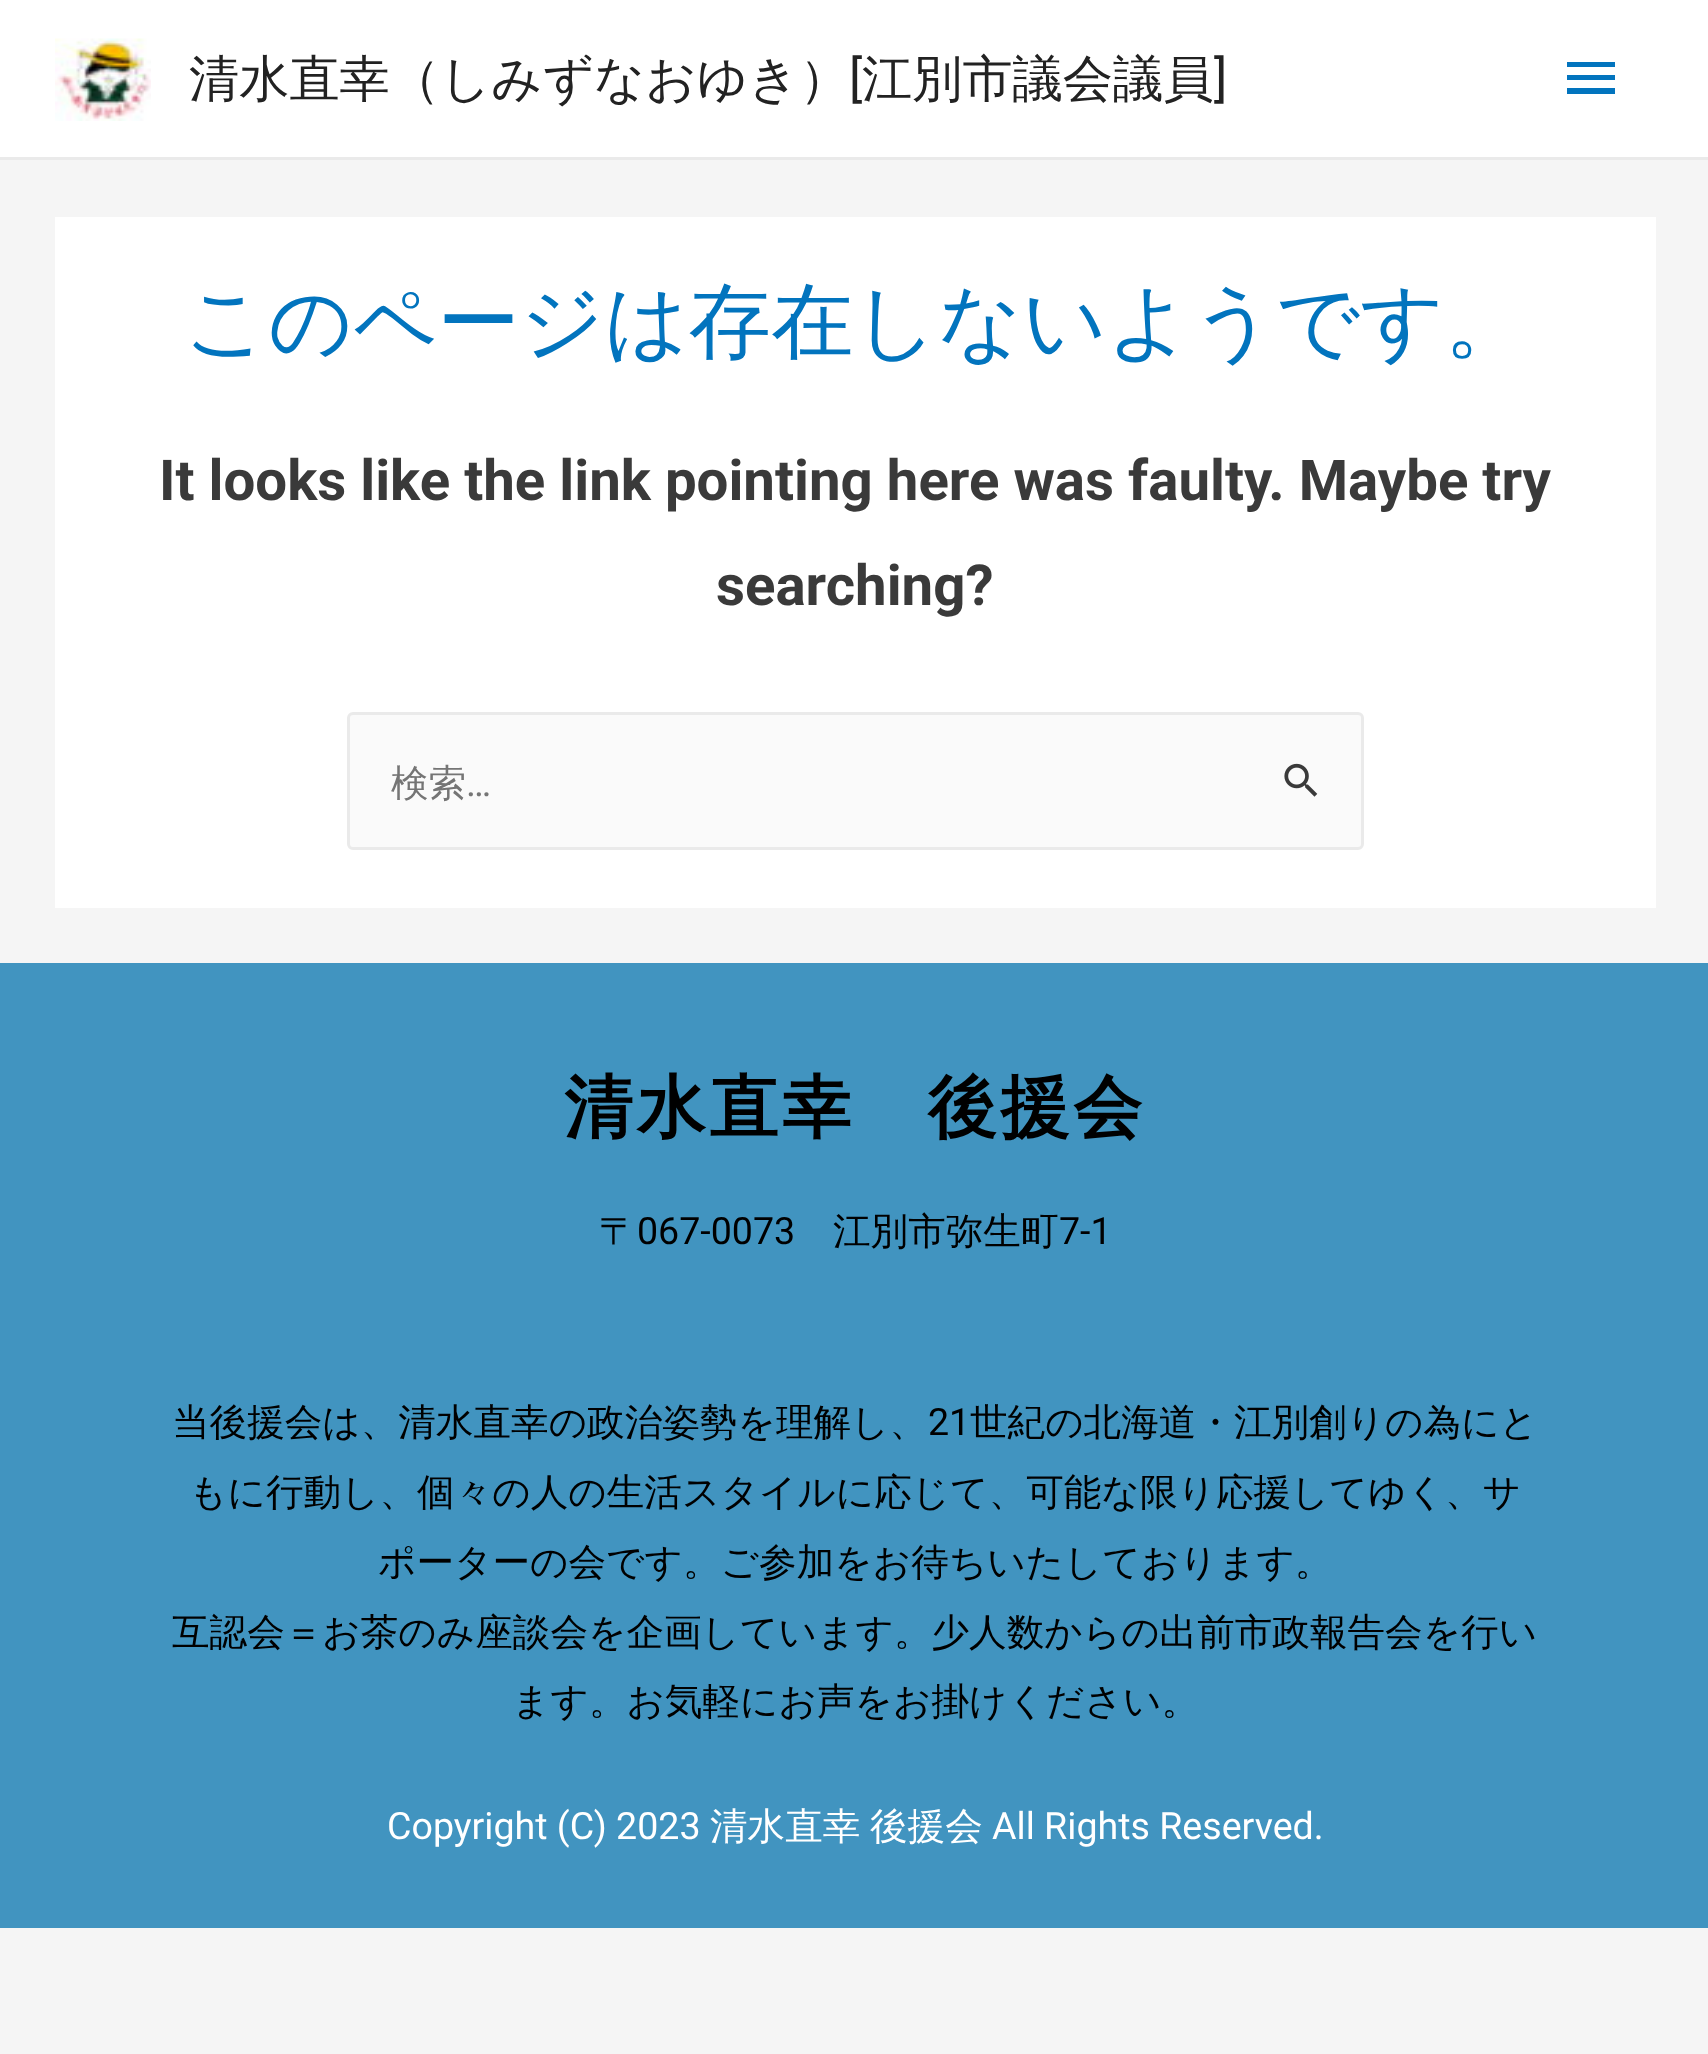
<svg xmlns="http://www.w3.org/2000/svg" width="1708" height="2054">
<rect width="100%" height="100%" fill="#f5f5f5"/>
<rect y="157" width="1708" height="3" fill="#eaeaea"/>
<rect width="1708" height="157" fill="#fff"/>
<image x="55" y="38" width="96" height="83" href="media/1.png"/>
<text x="189" y="96" style="font-family:WenQuanYi Zen Hei;font-size:50.2px;font-weight:500;fill:#222">清水直幸（しみずなおゆき）</text>
<text x="849" y="96" style="font-family:Roboto;font-size:50.2px;fill:#222">[</text>
<text x="862" y="96" style="font-family:WenQuanYi Zen Hei;font-size:50.2px;font-weight:500;fill:#222">江別市議会議員</text>
<text x="1214" y="96" style="font-family:Roboto;font-size:50.2px;fill:#222">]</text>
<path d="M1567 62h48v5h-48zm0 18v-5h48v5zm0 14v-6h48v6z" fill="#0274be"/>
<rect x="55" y="217" width="1601" height="691" fill="#fff"/>
<text x="184" y="350" style="font-family:WenQuanYi Zen Hei;font-size:82.5px;font-weight:500;fill:#0274be">このページは存在しないようです。</text>
<text x="159" y="500" style="font-family:Roboto;font-size:56.4px;font-weight:bold;fill:#3a3a3a">It looks like the link pointing here was faulty. Maybe try</text>
<text x="716" y="605" style="font-family:Roboto;font-size:56.4px;font-weight:bold;fill:#3a3a3a">searching?</text>
<rect x="348.5" y="713.5" width="1014" height="135" rx="4.5" fill="#fafafa" stroke="#eaeaea" stroke-width="3"/>
<text x="391" y="796" style="font-family:WenQuanYi Zen Hei;font-size:37.6px;font-weight:500;fill:#757575">検索</text>
<text x="466" y="796" style="font-family:Roboto;font-size:37.6px;fill:#757575">…</text>
<image x="1284" y="763" width="34" height="34" href="media/2.png"/>
<rect y="963" width="1708" height="965" fill="#4194c0"/>
<text x="564" y="1131" style="font-family:WenQuanYi Zen Hei;font-size:68.75px;font-weight:bold;letter-spacing:4px;fill:#000">清水直幸　後援会</text>
<text x="599" y="1244" style="font-family:WenQuanYi Zen Hei;font-size:37.6px;font-weight:500;fill:#000">〒</text>
<text x="637" y="1244" style="font-family:Roboto;font-size:37.6px;fill:#000">067-0073</text>
<text x="833" y="1244" style="font-family:WenQuanYi Zen Hei;font-size:37.6px;font-weight:500;fill:#000">江別市弥生町</text>
<text x="1059" y="1244" style="font-family:Roboto;font-size:37.6px;fill:#000">7-1</text>
<text x="172" y="1435" style="font-family:WenQuanYi Zen Hei;font-size:37.6px;font-weight:500;fill:#000">当後援会は、清水直幸の政治姿勢を理解し、</text>
<text x="928" y="1435" style="font-family:Roboto;font-size:37.6px;fill:#000">21</text>
<text x="970" y="1435" style="font-family:WenQuanYi Zen Hei;font-size:37.6px;font-weight:500;fill:#000">世紀の北海道・江別創りの為にと</text>
<text x="189" y="1505" style="font-family:WenQuanYi Zen Hei;font-size:37.6px;font-weight:500;fill:#000">もに行動し、個々の人の生活スタイルに応じて、可能な限り応援してゆく、サ</text>
<text x="378" y="1575" style="font-family:WenQuanYi Zen Hei;font-size:37.6px;font-weight:500;fill:#000">ポーターの会です。ご参加をお待ちいたしております。</text>
<text x="172" y="1645" style="font-family:WenQuanYi Zen Hei;font-size:37.6px;font-weight:500;fill:#000">互認会＝お茶のみ座談会を企画しています。少人数からの出前市政報告会を行い</text>
<text x="512" y="1714" style="font-family:WenQuanYi Zen Hei;font-size:37.6px;font-weight:500;fill:#000">ます。お気軽にお声をお掛けください。</text>
<text x="387" y="1839" style="font-family:Roboto;font-size:37.6px;fill:#fff">Copyright (C) 2023</text>
<text x="710" y="1839" style="font-family:WenQuanYi Zen Hei;font-size:37.6px;font-weight:500;fill:#fff">清水直幸</text>
<text x="870" y="1839" style="font-family:WenQuanYi Zen Hei;font-size:37.6px;font-weight:500;fill:#fff">後援会</text>
<text x="992" y="1839" style="font-family:Roboto;font-size:37.6px;fill:#fff">All Rights Reserved.</text>
</svg>
